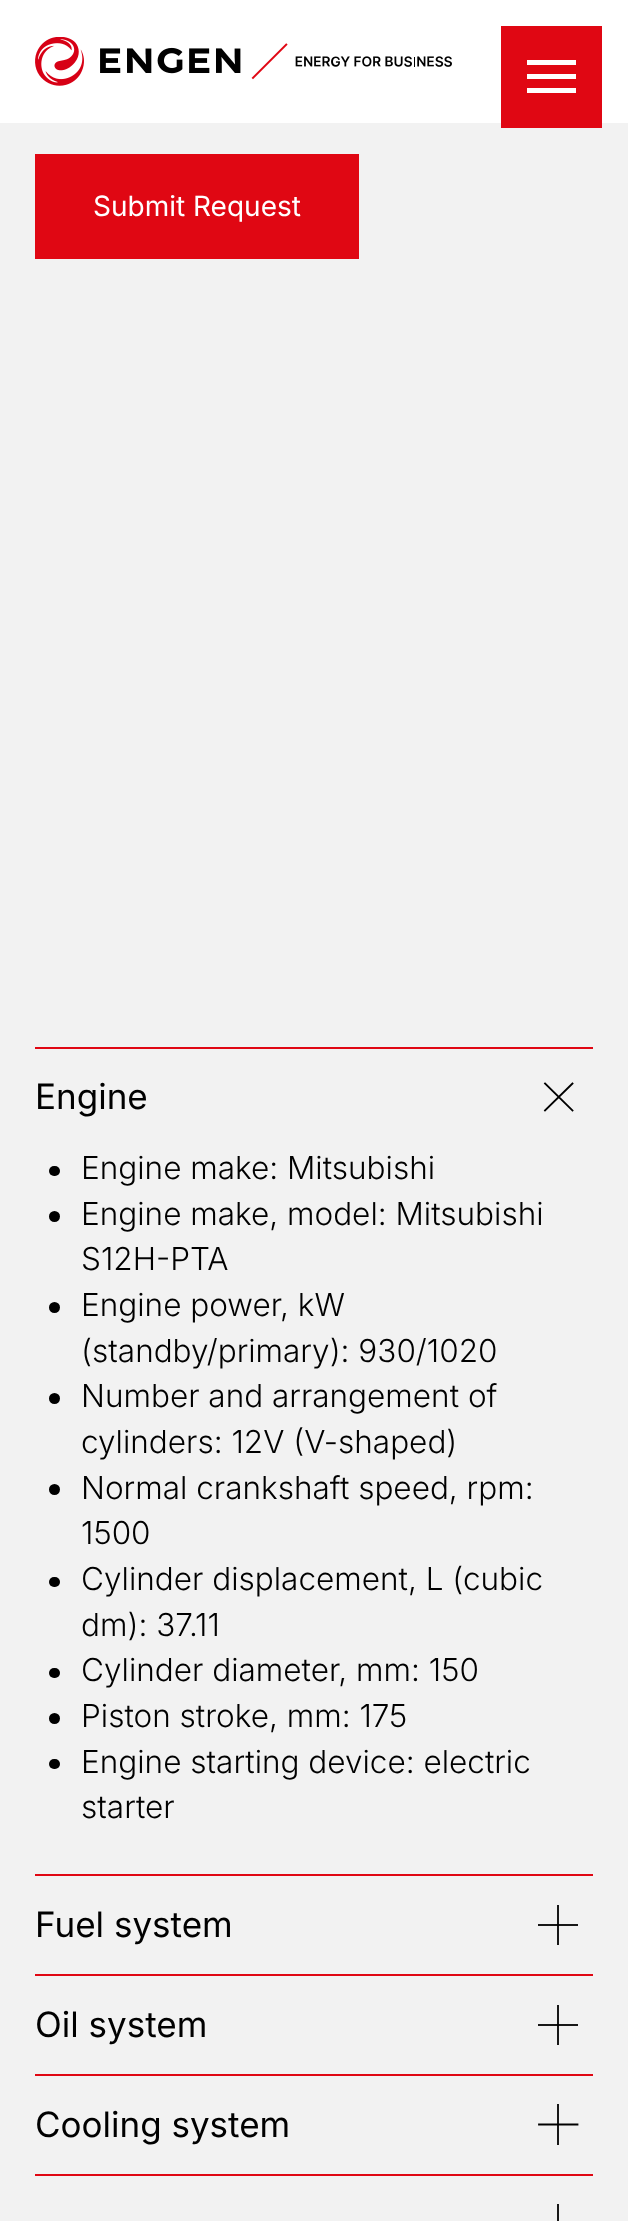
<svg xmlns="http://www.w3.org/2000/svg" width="628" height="2221">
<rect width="100%" height="100%" fill="#f2f2f2"/>
<rect width="628" height="123" fill="#fff"/>
<image x="35" y="37" width="417" height="49" href="media/1.png"/>
<rect x="501" y="26" width="101" height="102" fill="#e00713"/>
<rect x="527" y="60" width="49" height="5" fill="#fff"/>
<rect x="527" y="74" width="49" height="5" fill="#fff"/>
<rect x="527" y="88" width="49" height="5" fill="#fff"/>
<rect x="35" y="154" width="324" height="105" fill="#e00713"/>
<text x="93" y="216" style="font-family:Inter;font-size:28px;fill:#fff">Submit Request</text>
<rect x="557" y="2005" width="2" height="40" fill="#181818"/>
<rect x="557" y="1905" width="2" height="40" fill="#181818"/>
<rect x="35" y="1047" width="558" height="2" fill="#e00713"/>
<text x="35" y="1109" style="font-family:Inter;font-size:35px;fill:#000">Engine</text>
<path d="M545 1110.5l27.5-27m-27.5 0l27.5 27" fill="none" stroke="#000" stroke-width="1.8" stroke-linecap="square"/>
<rect x="49" y="1166" width="11" height="10" rx="5" fill="#000"/>
<text x="81" y="1179" style="font-family:Inter;font-size:31.5px;font-weight:300;fill:#000">Engine make: Mitsubishi</text>
<circle cx="54.5" cy="1216.5" r="5.5" fill="#000"/>
<text x="81" y="1225" style="font-family:Inter;font-size:31.5px;font-weight:300;fill:#000">Engine make, model: Mitsubishi</text>
<text x="81" y="1270" style="font-family:Inter;font-size:31.5px;font-weight:300;fill:#000">S12H-PTA</text>
<circle cx="54.5" cy="1307.5" r="5.5" fill="#000"/>
<text x="81" y="1316" style="font-family:Inter;font-size:31.5px;font-weight:300;fill:#000">Engine power, kW</text>
<text x="81" y="1362" style="font-family:Inter;font-size:31.5px;font-weight:300;fill:#000">(standby/primary): 930/1020</text>
<circle cx="54.5" cy="1398.5" r="5.5" fill="#000"/>
<text x="81" y="1407" style="font-family:Inter;font-size:31.5px;font-weight:300;fill:#000">Number and arrangement of</text>
<text x="81" y="1453" style="font-family:Inter;font-size:31.5px;font-weight:300;fill:#000">cylinders: 12V (V-shaped)</text>
<circle cx="54.5" cy="1489.5" r="5.5" fill="#000"/>
<text x="81" y="1499" style="font-family:Inter;font-size:31.5px;font-weight:300;fill:#000">Normal crankshaft speed, rpm:</text>
<text x="81" y="1544" style="font-family:Inter;font-size:31.5px;font-weight:300;fill:#000">1500</text>
<rect x="49" y="1577" width="11" height="10" rx="5" fill="#000"/>
<text x="81" y="1590" style="font-family:Inter;font-size:31.5px;font-weight:300;fill:#000">Cylinder displacement, L (cubic</text>
<text x="81" y="1636" style="font-family:Inter;font-size:31.5px;font-weight:300;fill:#000">dm): 37.11</text>
<rect x="49" y="1668" width="11" height="10" rx="5" fill="#000"/>
<text x="81" y="1681" style="font-family:Inter;font-size:31.5px;font-weight:300;fill:#000">Cylinder diameter, mm: 150</text>
<circle cx="54.5" cy="1718.5" r="5.5" fill="#000"/>
<text x="81" y="1727" style="font-family:Inter;font-size:31.5px;font-weight:300;fill:#000">Piston stroke, mm: 175</text>
<rect x="49" y="1759" width="11" height="10" rx="5" fill="#000"/>
<text x="81" y="1773" style="font-family:Inter;font-size:31.5px;font-weight:300;fill:#000">Engine starting device: electric</text>
<text x="81" y="1818" style="font-family:Inter;font-size:31.5px;font-weight:300;fill:#000">starter</text>
<rect x="35" y="1874" width="558" height="2" fill="#e00713"/>
<text x="35" y="1937" style="font-family:Inter;font-size:35px;fill:#000">Fuel system</text>
<rect x="538" y="1924" width="40" height="2" fill="#181818"/>
<rect x="557" y="1924" width="2" height="2" fill="#020202"/>
<rect x="35" y="1974" width="558" height="2" fill="#e00713"/>
<text x="35" y="2037" style="font-family:Inter;font-size:35px;fill:#000">Oil system</text>
<rect x="538" y="2024" width="40" height="2" fill="#181818"/>
<rect x="557" y="2024" width="2" height="2" fill="#020202"/>
<rect x="35" y="2074" width="558" height="2" fill="#e00713"/>
<text x="35" y="2137" style="font-family:Inter;font-size:35px;fill:#000">Cooling system</text>
<path d="M539 2124.5h38.5" fill="none" stroke="#000" stroke-width="1.8" stroke-linecap="square"/>
<rect x="557" y="2104" width="2" height="41" fill="#000000e6"/>
<rect x="35" y="2174" width="558" height="2" fill="#e00713"/>
<rect x="557" y="2204" width="2" height="17" fill="#181818"/>
</svg>
